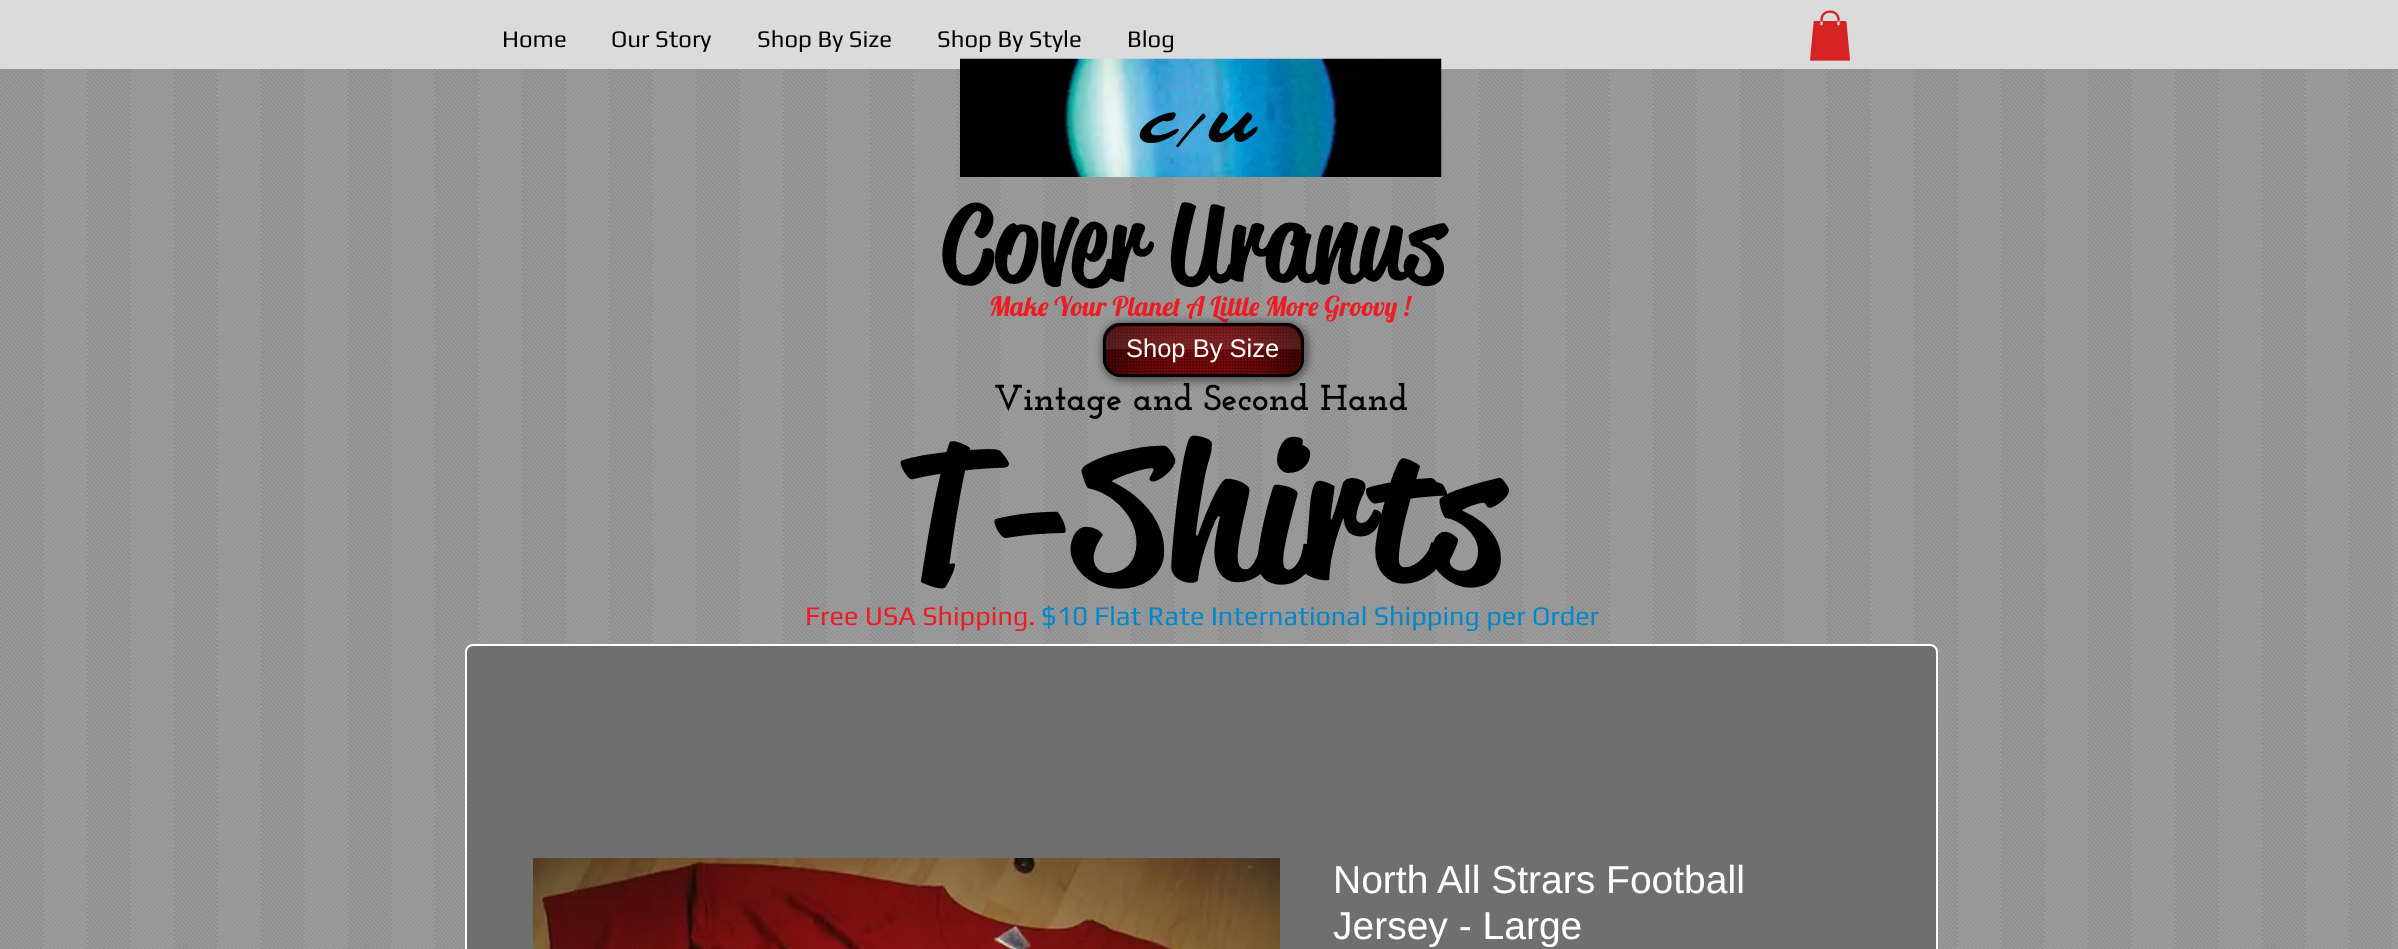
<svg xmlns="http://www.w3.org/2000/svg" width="2398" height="949">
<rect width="100%" height="100%" fill="#a7a7a7"/>
<rect width="2398" height="69" fill="#dbdbdb"/>
<text x="502" y="47" style="font-family:Play;font-size:24px;fill:#000">Home</text>
<text x="611" y="47" style="font-family:Play;font-size:24px;fill:#000">Our Story</text>
<text x="757" y="47" style="font-family:Play;font-size:24px;fill:#000">Shop By Size</text>
<text x="937" y="47" style="font-family:Play;font-size:24px;fill:#000">Shop By Style</text>
<text x="1127" y="47" style="font-family:Play;font-size:24px;fill:#000">Blog</text>
<image x="1810" y="10" width="40" height="51" href="media/1.png"/>
<image x="0" y="69" width="2398" height="880" href="media/8.png"/>
<image x="960" y="58" width="482" height="119" href="media/2.png"/>
<text x="1139" y="142" style="font-family:Sarina;font-size:45px;fill:#000">C/U</text>
<text x="941" y="280" style="font-family:'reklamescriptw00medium';font-size:108px;font-weight:500;fill:#000">Cover Uranus</text>
<text x="989" y="316" style="font-family:Lobster;font-size:27px;fill:#ed1c24">Make Your Planet A Little More Groovy !</text>
<rect x="1104" y="324" width="201" height="54" rx="18" fill="#ffffff4d" filter="blur(2px)"/>
<rect x="1103" y="323" width="204" height="57" rx="20" fill="#00000099" filter="blur(4.5px)"/>
<rect x="1103" y="323" width="201" height="54" rx="18" fill="#970c0c"/>
<image x="1102" y="322" width="202" height="55" href="media/3.png"/>
<rect x="1104.5" y="324.5" width="198" height="51" rx="16.5" fill="none" stroke="#000" stroke-width="3"/>
<image x="1106" y="326" width="68" height="48" href="media/5.png"/>
<image x="1233" y="326" width="68" height="48" href="media/6.png"/>
<text x="1126" y="357" style="font-family:Liberation Sans;font-size:25.5px;fill:#fff">Shop By Size</text>
<image x="1105" y="326" width="196" height="24" href="media/4.png"/>
<text x="994" y="410" style="font-family:Josefin Slab;font-size:36px;font-weight:bold;fill:#000">Vintage and Second Hand</text>
<text x="898" y="577" style="font-family:'reklamescriptw00medium';font-size:187.5px;font-weight:500;fill:#000">T-Shirts</text>
<text x="805" y="625" style="font-family:Play;font-size:27px;fill:#ed1c24">Free USA Shipping.</text>
<text x="1041" y="625" style="font-family:Play;font-size:27px;fill:#0088cb">$10 Flat Rate International Shipping per Order</text>
<rect x="466" y="645" width="1471" height="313" rx="7" fill="#6f6f6f" stroke="#fff" stroke-width="2"/>
<image x="533" y="858" width="747" height="91" href="media/7.png"/>
<text x="1333" y="893" style="font-family:Liberation Sans;font-size:39px;fill:#fff">North All Strars Football</text>
<text x="1333" y="939" style="font-family:Liberation Sans;font-size:39px;fill:#fff">Jersey - Large</text>
</svg>
